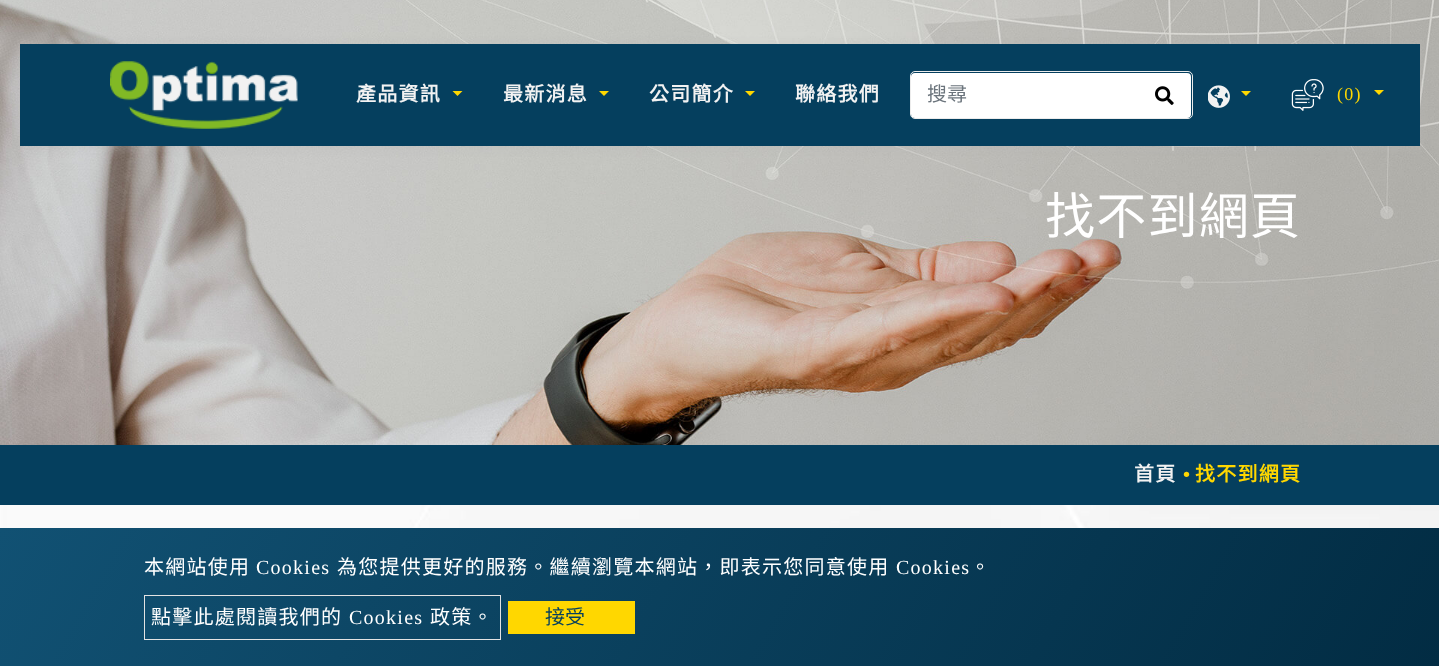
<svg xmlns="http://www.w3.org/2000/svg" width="1439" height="666">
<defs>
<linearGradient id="g1" gradientUnits="userSpaceOnUse" x1="150" y1="268" x2="1290" y2="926"><stop offset="0" stop-color="#115173"/><stop offset="1" stop-color="#022c43"/></linearGradient>
</defs>
<rect width="100%" height="100%" fill="#fff"/>
<image x="0" y="0" width="1439" height="445" href="media/6.png"/>
<rect x="20" y="44" width="1403" height="105" fill="#b7b7b74d" filter="blur(5px)"/>
<rect x="20" y="44" width="1400" height="102" fill="#053f5e"/>
<image x="110" y="61" width="188" height="68" href="media/1.png"/>
<text x="356" y="101" style="font-family:Noto Sans CJK TC;font-size:20px;font-weight:bold;letter-spacing:1.25px;fill:#f2f2f2">產品資訊</text>
<path d="M452.5 91h10l-5 5z" fill="#ffd700"/>
<text x="503" y="101" style="font-family:Noto Sans CJK TC;font-size:20px;font-weight:bold;letter-spacing:1.25px;fill:#f2f2f2">最新消息</text>
<path d="M599 91h10l-5 5z" fill="#ffd700"/>
<text x="649" y="101" style="font-family:Noto Sans CJK TC;font-size:20px;font-weight:bold;letter-spacing:1.25px;fill:#f2f2f2">公司簡介</text>
<path d="M745 91h10l-5 5z" fill="#ffd700"/>
<text x="795" y="101" style="font-family:Noto Sans CJK TC;font-size:20px;font-weight:bold;letter-spacing:1.25px;fill:#f2f2f2">聯絡我們</text>
<rect x="911" y="73" width="280" height="45" rx="4" fill="#fff"/>
<rect x="910.5" y="71.5" width="282" height="47" rx="4.5" fill="none" stroke="#ececec"/>
<text x="927" y="101" style="font-family:Noto Sans CJK TC;font-size:20px;fill:#6c757d">搜尋</text>
<image x="1155" y="86" width="19" height="19" href="media/2.png"/>
<image x="1208" y="85" width="22" height="23" href="media/3.png"/>
<path d="M1241 91h10l-5 5z" fill="#ffd700"/>
<image x="1291" y="79" width="33" height="32" href="media/4.png"/>
<text x="1337" y="100" style="font-family:Liberation Serif;font-size:18px;letter-spacing:1.25px;fill:#ffd700">(0)</text>
<path d="M1374 90h10l-5 5z" fill="#ffd700"/>
<image x="0" y="505" width="1439" height="23" href="media/5.png"/>
<text x="1045" y="234" style="font-family:Noto Sans CJK TC;font-size:50px;letter-spacing:1.25px;fill:#fff">找不到網頁</text>
<rect y="445" width="1439" height="60" fill="#053f5e"/>
<text x="1134" y="481" style="font-family:Noto Sans CJK TC;font-size:20px;font-weight:bold;letter-spacing:1.25px;fill:#f2f2f2">首頁</text>
<text x="1183" y="481" style="font-family:Liberation Serif;font-size:20px;font-weight:bold;letter-spacing:1.25px;fill:#ffd700">•</text>
<text x="1195" y="481" style="font-family:Noto Sans CJK TC;font-size:20px;font-weight:bold;letter-spacing:1.25px;fill:#ffd700">找不到網頁</text>
<rect y="528" width="1439" height="138" fill="url(#g1)"/>
<text x="144" y="574" style="font-family:Noto Sans CJK TC;font-size:20px;letter-spacing:1.25px;fill:#fff">本網站使用</text>
<text x="256" y="574" style="font-family:Liberation Serif;font-size:20px;letter-spacing:1.25px;fill:#fff">Cookies</text>
<text x="337" y="574" style="font-family:Noto Sans CJK TC;font-size:20px;letter-spacing:1.25px;fill:#fff">為您提供更好的服務。繼續瀏覽本網站，即表示您同意使用</text>
<text x="896" y="574" style="font-family:Liberation Serif;font-size:20px;letter-spacing:1.25px;fill:#fff">Cookies</text>
<text x="970" y="574" style="font-family:Noto Sans CJK TC;font-size:20px;letter-spacing:1.25px;fill:#fff">。</text>
<rect x="144.5" y="595.5" width="356" height="44" fill="none" stroke="#e3e3e3"/>
<text x="151" y="624" style="font-family:Noto Sans CJK TC;font-size:20px;letter-spacing:1.25px;fill:#fff">點擊此處閱讀我們的</text>
<text x="349" y="624" style="font-family:Liberation Serif;font-size:20px;letter-spacing:1.25px;fill:#fff">Cookies</text>
<text x="430" y="624" style="font-family:Noto Sans CJK TC;font-size:20px;letter-spacing:1.25px;fill:#fff">政策。</text>
<rect x="508" y="601" width="127" height="33" fill="#ffd700"/>
<text x="545" y="624" style="font-family:Noto Sans CJK TC;font-size:20px;fill:#053f5e">接受</text>
</svg>
